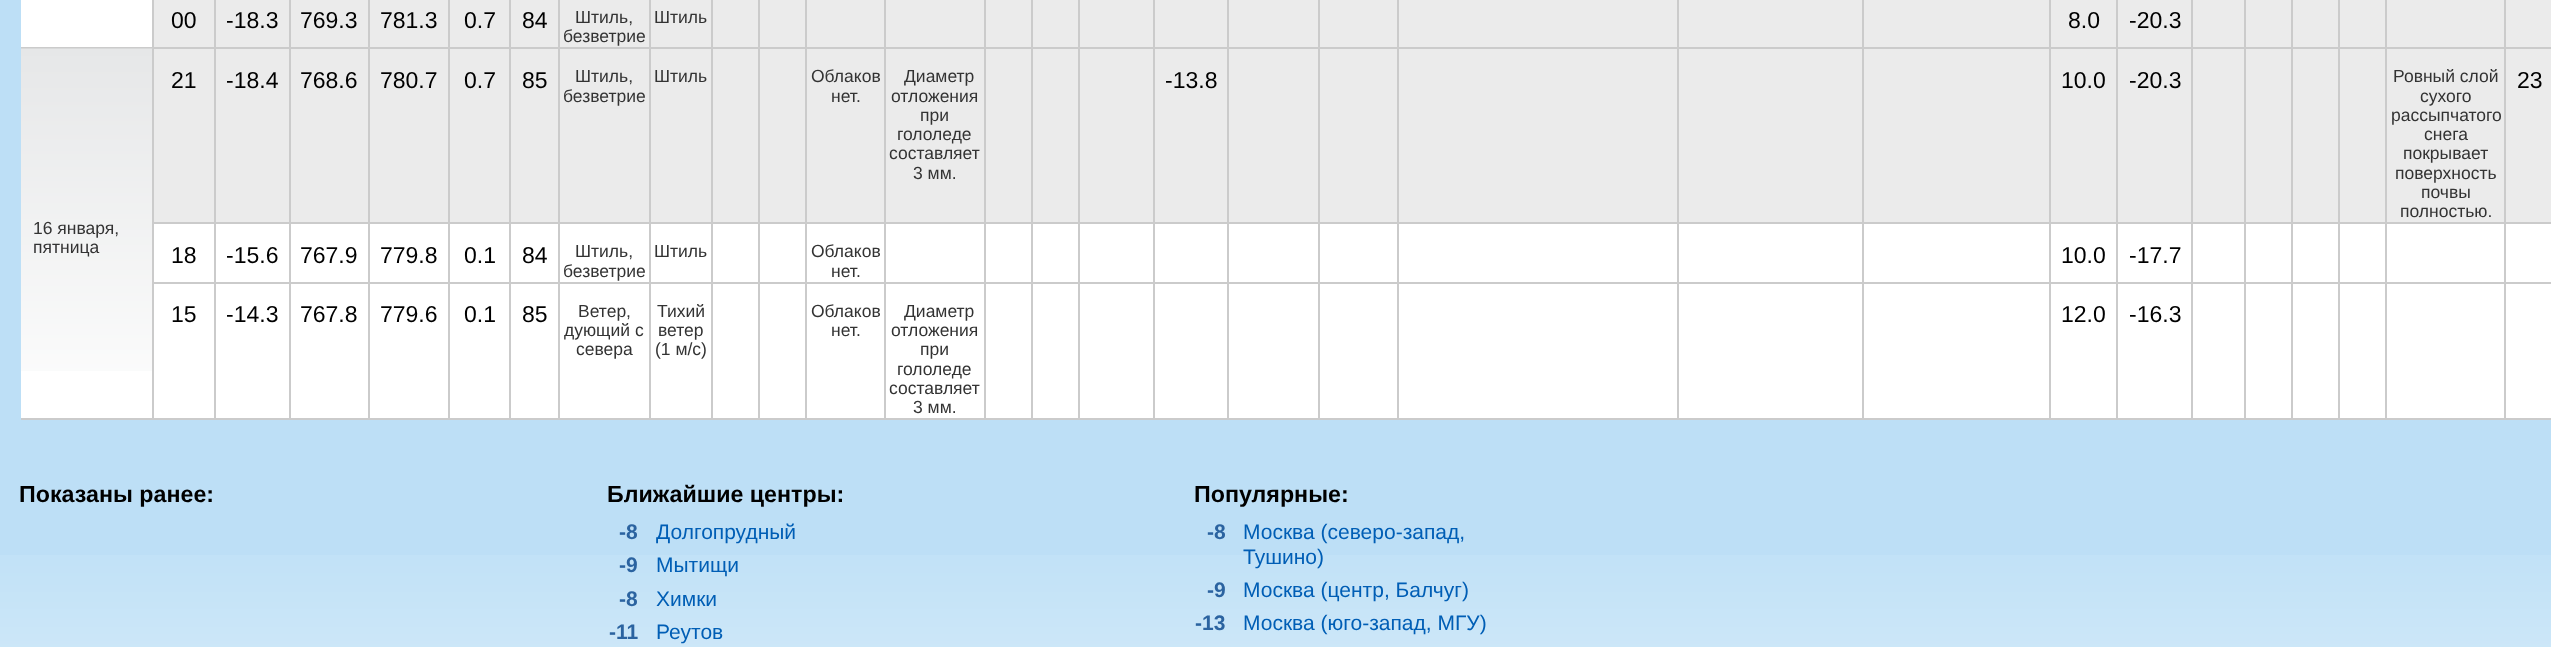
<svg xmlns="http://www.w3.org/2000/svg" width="2551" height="647">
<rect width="100%" height="100%" fill="#bddff6"/>
<rect x="21" width="2530" height="418" fill="#fff"/>
<rect x="154" width="60" height="47" fill="#ebebeb"/>
<rect x="21" y="47" width="2530" height="2" fill="#cbcbcb"/>
<rect x="152" width="2" height="49" fill="#cbcbcb"/>
<text x="171" y="28" style="font-family:Liberation Sans;font-size:23px;fill:#000">00</text>
<rect x="216" width="73" height="47" fill="#ebebeb"/>
<rect x="214" width="2" height="49" fill="#cbcbcb"/>
<text x="226" y="28" style="font-family:Liberation Sans;font-size:23px;fill:#000">-18.3</text>
<rect x="291" width="77" height="47" fill="#ebebeb"/>
<rect x="289" width="2" height="49" fill="#cbcbcb"/>
<text x="300" y="28" style="font-family:Liberation Sans;font-size:23px;fill:#000">769.3</text>
<rect x="370" width="78" height="47" fill="#ebebeb"/>
<rect x="368" width="2" height="49" fill="#cbcbcb"/>
<text x="380" y="28" style="font-family:Liberation Sans;font-size:23px;fill:#000">781.3</text>
<rect x="450" width="59" height="47" fill="#ebebeb"/>
<rect x="448" width="2" height="49" fill="#cbcbcb"/>
<text x="464" y="28" style="font-family:Liberation Sans;font-size:23px;fill:#000">0.7</text>
<rect x="511" width="47" height="47" fill="#ebebeb"/>
<rect x="509" width="2" height="49" fill="#cbcbcb"/>
<text x="522" y="28" style="font-family:Liberation Sans;font-size:23px;fill:#000">84</text>
<rect x="560" width="89" height="47" fill="#ebebeb"/>
<rect x="558" width="2" height="49" fill="#cbcbcb"/>
<text x="575" y="23" style="font-family:Liberation Sans;font-size:17.5px;fill:#333">Штиль,</text>
<text x="563" y="42" style="font-family:Liberation Sans;font-size:17.5px;fill:#333">безветрие</text>
<rect x="651" width="60" height="47" fill="#ebebeb"/>
<rect x="649" width="2" height="49" fill="#cbcbcb"/>
<text x="654" y="23" style="font-family:Liberation Sans;font-size:17.5px;fill:#333">Штиль</text>
<rect x="713" width="45" height="47" fill="#ebebeb"/>
<rect x="711" width="2" height="49" fill="#cbcbcb"/>
<rect x="760" width="45" height="47" fill="#ebebeb"/>
<rect x="758" width="2" height="49" fill="#cbcbcb"/>
<rect x="807" width="77" height="47" fill="#ebebeb"/>
<rect x="805" width="2" height="49" fill="#cbcbcb"/>
<rect x="886" width="98" height="47" fill="#ebebeb"/>
<rect x="884" width="2" height="49" fill="#cbcbcb"/>
<rect x="986" width="45" height="47" fill="#ebebeb"/>
<rect x="984" width="2" height="49" fill="#cbcbcb"/>
<rect x="1033" width="45" height="47" fill="#ebebeb"/>
<rect x="1031" width="2" height="49" fill="#cbcbcb"/>
<rect x="1080" width="73" height="47" fill="#ebebeb"/>
<rect x="1078" width="2" height="49" fill="#cbcbcb"/>
<rect x="1155" width="72" height="47" fill="#ebebeb"/>
<rect x="1153" width="2" height="49" fill="#cbcbcb"/>
<rect x="1229" width="89" height="47" fill="#ebebeb"/>
<rect x="1227" width="2" height="49" fill="#cbcbcb"/>
<rect x="1320" width="77" height="47" fill="#ebebeb"/>
<rect x="1318" width="2" height="49" fill="#cbcbcb"/>
<rect x="1399" width="278" height="47" fill="#ebebeb"/>
<rect x="1397" width="2" height="49" fill="#cbcbcb"/>
<rect x="1679" width="183" height="47" fill="#ebebeb"/>
<rect x="1677" width="2" height="49" fill="#cbcbcb"/>
<rect x="1864" width="185" height="47" fill="#ebebeb"/>
<rect x="1862" width="2" height="49" fill="#cbcbcb"/>
<rect x="2051" width="65" height="47" fill="#ebebeb"/>
<rect x="2049" width="2" height="49" fill="#cbcbcb"/>
<text x="2068" y="28" style="font-family:Liberation Sans;font-size:23px;fill:#000">8.0</text>
<rect x="2118" width="73" height="47" fill="#ebebeb"/>
<rect x="2116" width="2" height="49" fill="#cbcbcb"/>
<text x="2129" y="28" style="font-family:Liberation Sans;font-size:23px;fill:#000">-20.3</text>
<rect x="2193" width="51" height="47" fill="#ebebeb"/>
<rect x="2191" width="2" height="49" fill="#cbcbcb"/>
<rect x="2246" width="45" height="47" fill="#ebebeb"/>
<rect x="2244" width="2" height="49" fill="#cbcbcb"/>
<rect x="2293" width="45" height="47" fill="#ebebeb"/>
<rect x="2291" width="2" height="49" fill="#cbcbcb"/>
<rect x="2340" width="45" height="47" fill="#ebebeb"/>
<rect x="2338" width="2" height="49" fill="#cbcbcb"/>
<rect x="2387" width="117" height="47" fill="#ebebeb"/>
<rect x="2385" width="2" height="49" fill="#cbcbcb"/>
<rect x="2506" width="45" height="47" fill="#ebebeb"/>
<rect x="2504" width="2" height="49" fill="#cbcbcb"/>
<rect x="154" y="49" width="60" height="173" fill="#ebebeb"/>
<image x="21" y="48" width="132" height="323" href="media/1.png"/>
<rect x="152" y="222" width="2399" height="2" fill="#cbcbcb"/>
<rect x="152" y="49" width="2" height="175" fill="#cbcbcb"/>
<text x="171" y="88" style="font-family:Liberation Sans;font-size:23px;fill:#000">21</text>
<rect x="216" y="49" width="73" height="173" fill="#ebebeb"/>
<rect x="214" y="49" width="2" height="175" fill="#cbcbcb"/>
<text x="226" y="88" style="font-family:Liberation Sans;font-size:23px;fill:#000">-18.4</text>
<rect x="291" y="49" width="77" height="173" fill="#ebebeb"/>
<rect x="289" y="49" width="2" height="175" fill="#cbcbcb"/>
<text x="300" y="88" style="font-family:Liberation Sans;font-size:23px;fill:#000">768.6</text>
<rect x="370" y="49" width="78" height="173" fill="#ebebeb"/>
<rect x="368" y="49" width="2" height="175" fill="#cbcbcb"/>
<text x="380" y="88" style="font-family:Liberation Sans;font-size:23px;fill:#000">780.7</text>
<rect x="450" y="49" width="59" height="173" fill="#ebebeb"/>
<rect x="448" y="49" width="2" height="175" fill="#cbcbcb"/>
<text x="464" y="88" style="font-family:Liberation Sans;font-size:23px;fill:#000">0.7</text>
<rect x="511" y="49" width="47" height="173" fill="#ebebeb"/>
<rect x="509" y="49" width="2" height="175" fill="#cbcbcb"/>
<text x="522" y="88" style="font-family:Liberation Sans;font-size:23px;fill:#000">85</text>
<rect x="560" y="49" width="89" height="173" fill="#ebebeb"/>
<rect x="558" y="49" width="2" height="175" fill="#cbcbcb"/>
<text x="575" y="82" style="font-family:Liberation Sans;font-size:17.5px;fill:#333">Штиль,</text>
<text x="563" y="102" style="font-family:Liberation Sans;font-size:17.5px;fill:#333">безветрие</text>
<rect x="651" y="49" width="60" height="173" fill="#ebebeb"/>
<rect x="649" y="49" width="2" height="175" fill="#cbcbcb"/>
<text x="654" y="82" style="font-family:Liberation Sans;font-size:17.5px;fill:#333">Штиль</text>
<rect x="713" y="49" width="45" height="173" fill="#ebebeb"/>
<rect x="711" y="49" width="2" height="175" fill="#cbcbcb"/>
<rect x="760" y="49" width="45" height="173" fill="#ebebeb"/>
<rect x="758" y="49" width="2" height="175" fill="#cbcbcb"/>
<rect x="807" y="49" width="77" height="173" fill="#ebebeb"/>
<rect x="805" y="49" width="2" height="175" fill="#cbcbcb"/>
<text x="811" y="82" style="font-family:Liberation Sans;font-size:17.5px;fill:#333">Облаков</text>
<text x="831" y="102" style="font-family:Liberation Sans;font-size:17.5px;fill:#333">нет.</text>
<rect x="886" y="49" width="98" height="173" fill="#ebebeb"/>
<rect x="884" y="49" width="2" height="175" fill="#cbcbcb"/>
<text x="904" y="82" style="font-family:Liberation Sans;font-size:17.5px;fill:#333">Диаметр</text>
<text x="891" y="102" style="font-family:Liberation Sans;font-size:17.5px;fill:#333">отложения</text>
<text x="920" y="121" style="font-family:Liberation Sans;font-size:17.5px;fill:#333">при</text>
<text x="897" y="140" style="font-family:Liberation Sans;font-size:17.5px;fill:#333">гололеде</text>
<text x="889" y="159" style="font-family:Liberation Sans;font-size:17.5px;fill:#333">составляет</text>
<text x="913" y="179" style="font-family:Liberation Sans;font-size:17.5px;fill:#333">3 мм.</text>
<rect x="986" y="49" width="45" height="173" fill="#ebebeb"/>
<rect x="984" y="49" width="2" height="175" fill="#cbcbcb"/>
<rect x="1033" y="49" width="45" height="173" fill="#ebebeb"/>
<rect x="1031" y="49" width="2" height="175" fill="#cbcbcb"/>
<rect x="1080" y="49" width="73" height="173" fill="#ebebeb"/>
<rect x="1078" y="49" width="2" height="175" fill="#cbcbcb"/>
<rect x="1155" y="49" width="72" height="173" fill="#ebebeb"/>
<rect x="1153" y="49" width="2" height="175" fill="#cbcbcb"/>
<text x="1165" y="88" style="font-family:Liberation Sans;font-size:23px;fill:#000">-13.8</text>
<rect x="1229" y="49" width="89" height="173" fill="#ebebeb"/>
<rect x="1227" y="49" width="2" height="175" fill="#cbcbcb"/>
<rect x="1320" y="49" width="77" height="173" fill="#ebebeb"/>
<rect x="1318" y="49" width="2" height="175" fill="#cbcbcb"/>
<rect x="1399" y="49" width="278" height="173" fill="#ebebeb"/>
<rect x="1397" y="49" width="2" height="175" fill="#cbcbcb"/>
<rect x="1679" y="49" width="183" height="173" fill="#ebebeb"/>
<rect x="1677" y="49" width="2" height="175" fill="#cbcbcb"/>
<rect x="1864" y="49" width="185" height="173" fill="#ebebeb"/>
<rect x="1862" y="49" width="2" height="175" fill="#cbcbcb"/>
<rect x="2051" y="49" width="65" height="173" fill="#ebebeb"/>
<rect x="2049" y="49" width="2" height="175" fill="#cbcbcb"/>
<text x="2061" y="88" style="font-family:Liberation Sans;font-size:23px;fill:#000">10.0</text>
<rect x="2118" y="49" width="73" height="173" fill="#ebebeb"/>
<rect x="2116" y="49" width="2" height="175" fill="#cbcbcb"/>
<text x="2129" y="88" style="font-family:Liberation Sans;font-size:23px;fill:#000">-20.3</text>
<rect x="2193" y="49" width="51" height="173" fill="#ebebeb"/>
<rect x="2191" y="49" width="2" height="175" fill="#cbcbcb"/>
<rect x="2246" y="49" width="45" height="173" fill="#ebebeb"/>
<rect x="2244" y="49" width="2" height="175" fill="#cbcbcb"/>
<rect x="2293" y="49" width="45" height="173" fill="#ebebeb"/>
<rect x="2291" y="49" width="2" height="175" fill="#cbcbcb"/>
<rect x="2340" y="49" width="45" height="173" fill="#ebebeb"/>
<rect x="2338" y="49" width="2" height="175" fill="#cbcbcb"/>
<rect x="2387" y="49" width="117" height="173" fill="#ebebeb"/>
<rect x="2385" y="49" width="2" height="175" fill="#cbcbcb"/>
<text x="2393" y="82" style="font-family:Liberation Sans;font-size:17.5px;fill:#333">Ровный слой</text>
<text x="2420" y="102" style="font-family:Liberation Sans;font-size:17.5px;fill:#333">сухого</text>
<text x="2391" y="121" style="font-family:Liberation Sans;font-size:17.5px;fill:#333">рассыпчатого</text>
<text x="2424" y="140" style="font-family:Liberation Sans;font-size:17.5px;fill:#333">снега</text>
<text x="2403" y="159" style="font-family:Liberation Sans;font-size:17.5px;fill:#333">покрывает</text>
<text x="2395" y="179" style="font-family:Liberation Sans;font-size:17.5px;fill:#333">поверхность</text>
<text x="2421" y="198" style="font-family:Liberation Sans;font-size:17.5px;fill:#333">почвы</text>
<text x="2400" y="217" style="font-family:Liberation Sans;font-size:17.5px;fill:#333">полностью.</text>
<rect x="2506" y="49" width="45" height="173" fill="#ebebeb"/>
<rect x="2504" y="49" width="2" height="175" fill="#cbcbcb"/>
<text x="2517" y="88" style="font-family:Liberation Sans;font-size:23px;fill:#000">23</text>
<rect x="21" y="418" width="2530" height="2" fill="#cbcbcb"/>
<text x="33" y="234" style="font-family:Liberation Sans;font-size:17.5px;fill:#333">16 января,</text>
<text x="33" y="253" style="font-family:Liberation Sans;font-size:17.5px;fill:#333">пятница</text>
<rect x="152" y="282" width="2399" height="2" fill="#cbcbcb"/>
<rect x="152" y="224" width="2" height="196" fill="#cbcbcb"/>
<text x="171" y="263" style="font-family:Liberation Sans;font-size:23px;fill:#000">18</text>
<rect x="214" y="224" width="2" height="196" fill="#cbcbcb"/>
<text x="226" y="263" style="font-family:Liberation Sans;font-size:23px;fill:#000">-15.6</text>
<rect x="289" y="224" width="2" height="196" fill="#cbcbcb"/>
<text x="300" y="263" style="font-family:Liberation Sans;font-size:23px;fill:#000">767.9</text>
<rect x="368" y="224" width="2" height="196" fill="#cbcbcb"/>
<text x="380" y="263" style="font-family:Liberation Sans;font-size:23px;fill:#000">779.8</text>
<rect x="448" y="224" width="2" height="196" fill="#cbcbcb"/>
<text x="464" y="263" style="font-family:Liberation Sans;font-size:23px;fill:#000">0.1</text>
<rect x="509" y="224" width="2" height="196" fill="#cbcbcb"/>
<text x="522" y="263" style="font-family:Liberation Sans;font-size:23px;fill:#000">84</text>
<rect x="558" y="224" width="2" height="196" fill="#cbcbcb"/>
<text x="575" y="257" style="font-family:Liberation Sans;font-size:17.5px;fill:#333">Штиль,</text>
<text x="563" y="277" style="font-family:Liberation Sans;font-size:17.5px;fill:#333">безветрие</text>
<rect x="649" y="224" width="2" height="196" fill="#cbcbcb"/>
<text x="654" y="257" style="font-family:Liberation Sans;font-size:17.5px;fill:#333">Штиль</text>
<rect x="711" y="224" width="2" height="196" fill="#cbcbcb"/>
<rect x="758" y="224" width="2" height="196" fill="#cbcbcb"/>
<rect x="805" y="224" width="2" height="196" fill="#cbcbcb"/>
<text x="811" y="257" style="font-family:Liberation Sans;font-size:17.5px;fill:#333">Облаков</text>
<text x="831" y="277" style="font-family:Liberation Sans;font-size:17.5px;fill:#333">нет.</text>
<rect x="884" y="224" width="2" height="196" fill="#cbcbcb"/>
<rect x="984" y="224" width="2" height="196" fill="#cbcbcb"/>
<rect x="1031" y="224" width="2" height="196" fill="#cbcbcb"/>
<rect x="1078" y="224" width="2" height="196" fill="#cbcbcb"/>
<rect x="1153" y="224" width="2" height="196" fill="#cbcbcb"/>
<rect x="1227" y="224" width="2" height="196" fill="#cbcbcb"/>
<rect x="1318" y="224" width="2" height="196" fill="#cbcbcb"/>
<rect x="1397" y="224" width="2" height="196" fill="#cbcbcb"/>
<rect x="1677" y="224" width="2" height="196" fill="#cbcbcb"/>
<rect x="1862" y="224" width="2" height="196" fill="#cbcbcb"/>
<rect x="2049" y="224" width="2" height="196" fill="#cbcbcb"/>
<text x="2061" y="263" style="font-family:Liberation Sans;font-size:23px;fill:#000">10.0</text>
<rect x="2116" y="224" width="2" height="196" fill="#cbcbcb"/>
<text x="2129" y="263" style="font-family:Liberation Sans;font-size:23px;fill:#000">-17.7</text>
<rect x="2191" y="224" width="2" height="196" fill="#cbcbcb"/>
<rect x="2244" y="224" width="2" height="196" fill="#cbcbcb"/>
<rect x="2291" y="224" width="2" height="196" fill="#cbcbcb"/>
<rect x="2338" y="224" width="2" height="196" fill="#cbcbcb"/>
<rect x="2385" y="224" width="2" height="196" fill="#cbcbcb"/>
<rect x="2504" y="224" width="2" height="196" fill="#cbcbcb"/>
<text x="171" y="322" style="font-family:Liberation Sans;font-size:23px;fill:#000">15</text>
<text x="226" y="322" style="font-family:Liberation Sans;font-size:23px;fill:#000">-14.3</text>
<text x="300" y="322" style="font-family:Liberation Sans;font-size:23px;fill:#000">767.8</text>
<text x="380" y="322" style="font-family:Liberation Sans;font-size:23px;fill:#000">779.6</text>
<text x="464" y="322" style="font-family:Liberation Sans;font-size:23px;fill:#000">0.1</text>
<text x="522" y="322" style="font-family:Liberation Sans;font-size:23px;fill:#000">85</text>
<text x="578" y="317" style="font-family:Liberation Sans;font-size:17.5px;fill:#333">Ветер,</text>
<text x="564" y="336" style="font-family:Liberation Sans;font-size:17.5px;fill:#333">дующий с</text>
<text x="576" y="355" style="font-family:Liberation Sans;font-size:17.5px;fill:#333">севера</text>
<text x="657" y="317" style="font-family:Liberation Sans;font-size:17.5px;fill:#333">Тихий</text>
<text x="658" y="336" style="font-family:Liberation Sans;font-size:17.5px;fill:#333">ветер</text>
<text x="655" y="355" style="font-family:Liberation Sans;font-size:17.5px;fill:#333">(1 м/с)</text>
<text x="811" y="317" style="font-family:Liberation Sans;font-size:17.5px;fill:#333">Облаков</text>
<text x="831" y="336" style="font-family:Liberation Sans;font-size:17.5px;fill:#333">нет.</text>
<text x="904" y="317" style="font-family:Liberation Sans;font-size:17.5px;fill:#333">Диаметр</text>
<text x="891" y="336" style="font-family:Liberation Sans;font-size:17.5px;fill:#333">отложения</text>
<text x="920" y="355" style="font-family:Liberation Sans;font-size:17.5px;fill:#333">при</text>
<text x="897" y="375" style="font-family:Liberation Sans;font-size:17.5px;fill:#333">гололеде</text>
<text x="889" y="394" style="font-family:Liberation Sans;font-size:17.5px;fill:#333">составляет</text>
<text x="913" y="413" style="font-family:Liberation Sans;font-size:17.5px;fill:#333">3 мм.</text>
<text x="2061" y="322" style="font-family:Liberation Sans;font-size:23px;fill:#000">12.0</text>
<text x="2129" y="322" style="font-family:Liberation Sans;font-size:23px;fill:#000">-16.3</text>
<image x="0" y="555" width="2551" height="92" href="media/2.png"/>
<text x="19" y="502" style="font-family:Liberation Sans;font-size:23.25px;font-weight:bold;fill:#000">Показаны ранее:</text>
<text x="607" y="502" style="font-family:Liberation Sans;font-size:23.25px;font-weight:bold;fill:#000">Ближайшие центры:</text>
<text x="619" y="539" style="font-family:Liberation Sans;font-size:21px;font-weight:bold;fill:#2b63a0">-8</text>
<text x="656" y="539" style="font-family:Liberation Sans;font-size:21px;fill:#005eb5">Долгопрудный</text>
<text x="619" y="572" style="font-family:Liberation Sans;font-size:21px;font-weight:bold;fill:#2b63a0">-9</text>
<text x="656" y="572" style="font-family:Liberation Sans;font-size:21px;fill:#005eb5">Мытищи</text>
<text x="619" y="606" style="font-family:Liberation Sans;font-size:21px;font-weight:bold;fill:#2b63a0">-8</text>
<text x="656" y="606" style="font-family:Liberation Sans;font-size:21px;fill:#005eb5">Химки</text>
<text x="609" y="639" style="font-family:Liberation Sans;font-size:21px;font-weight:bold;fill:#2b63a0">-11</text>
<text x="656" y="639" style="font-family:Liberation Sans;font-size:21px;fill:#005eb5">Реутов</text>
<text x="1194" y="502" style="font-family:Liberation Sans;font-size:23.25px;font-weight:bold;fill:#000">Популярные:</text>
<text x="1207" y="539" style="font-family:Liberation Sans;font-size:21px;font-weight:bold;fill:#2b63a0">-8</text>
<text x="1243" y="539" style="font-family:Liberation Sans;font-size:21px;fill:#005eb5">Москва (северо-запад,</text>
<text x="1243" y="564" style="font-family:Liberation Sans;font-size:21px;fill:#005eb5">Тушино)</text>
<text x="1207" y="597" style="font-family:Liberation Sans;font-size:21px;font-weight:bold;fill:#2b63a0">-9</text>
<text x="1243" y="597" style="font-family:Liberation Sans;font-size:21px;fill:#005eb5">Москва (центр, Балчуг)</text>
<text x="1195" y="630" style="font-family:Liberation Sans;font-size:21px;font-weight:bold;fill:#2b63a0">-13</text>
<text x="1243" y="630" style="font-family:Liberation Sans;font-size:21px;fill:#005eb5">Москва (юго-запад, МГУ)</text>
</svg>
